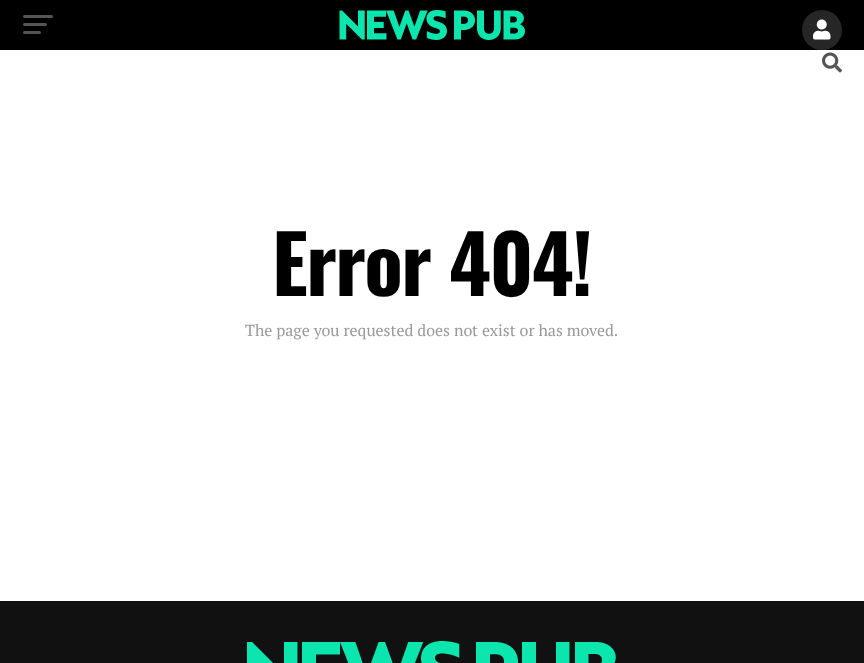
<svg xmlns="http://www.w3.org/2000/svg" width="864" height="663">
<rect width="100%" height="100%" fill="#fff"/>
<rect width="864" height="50" fill="#000"/>
<rect x="23" y="15" width="30" height="3" rx="1.5" fill="#555"/>
<rect x="23" y="23" width="24" height="3" rx="1.5" fill="#555"/>
<rect x="23" y="31" width="18" height="3" rx="1.5" fill="#555"/>
<image x="339" y="10" width="186" height="30" href="media/1.png"/>
<circle cx="822" cy="30" r="20" fill="#262626"/>
<image x="813" y="19" width="18" height="21" href="media/2.png"/>
<image x="822" y="52" width="20" height="21" href="media/3.png"/>
<text x="272" y="296" style="font-family:Oswald;font-size:80px;font-weight:bold;letter-spacing:-1.6px;fill:#000">Error 404!</text>
<text x="245" y="336" style="font-family:PT Serif;font-size:16px;fill:#999">The page you requested does not exist or has moved.</text>
<rect y="601" width="864" height="62" fill="#111"/>
<image x="247" y="641" width="369" height="22" href="media/4.png"/>
</svg>
